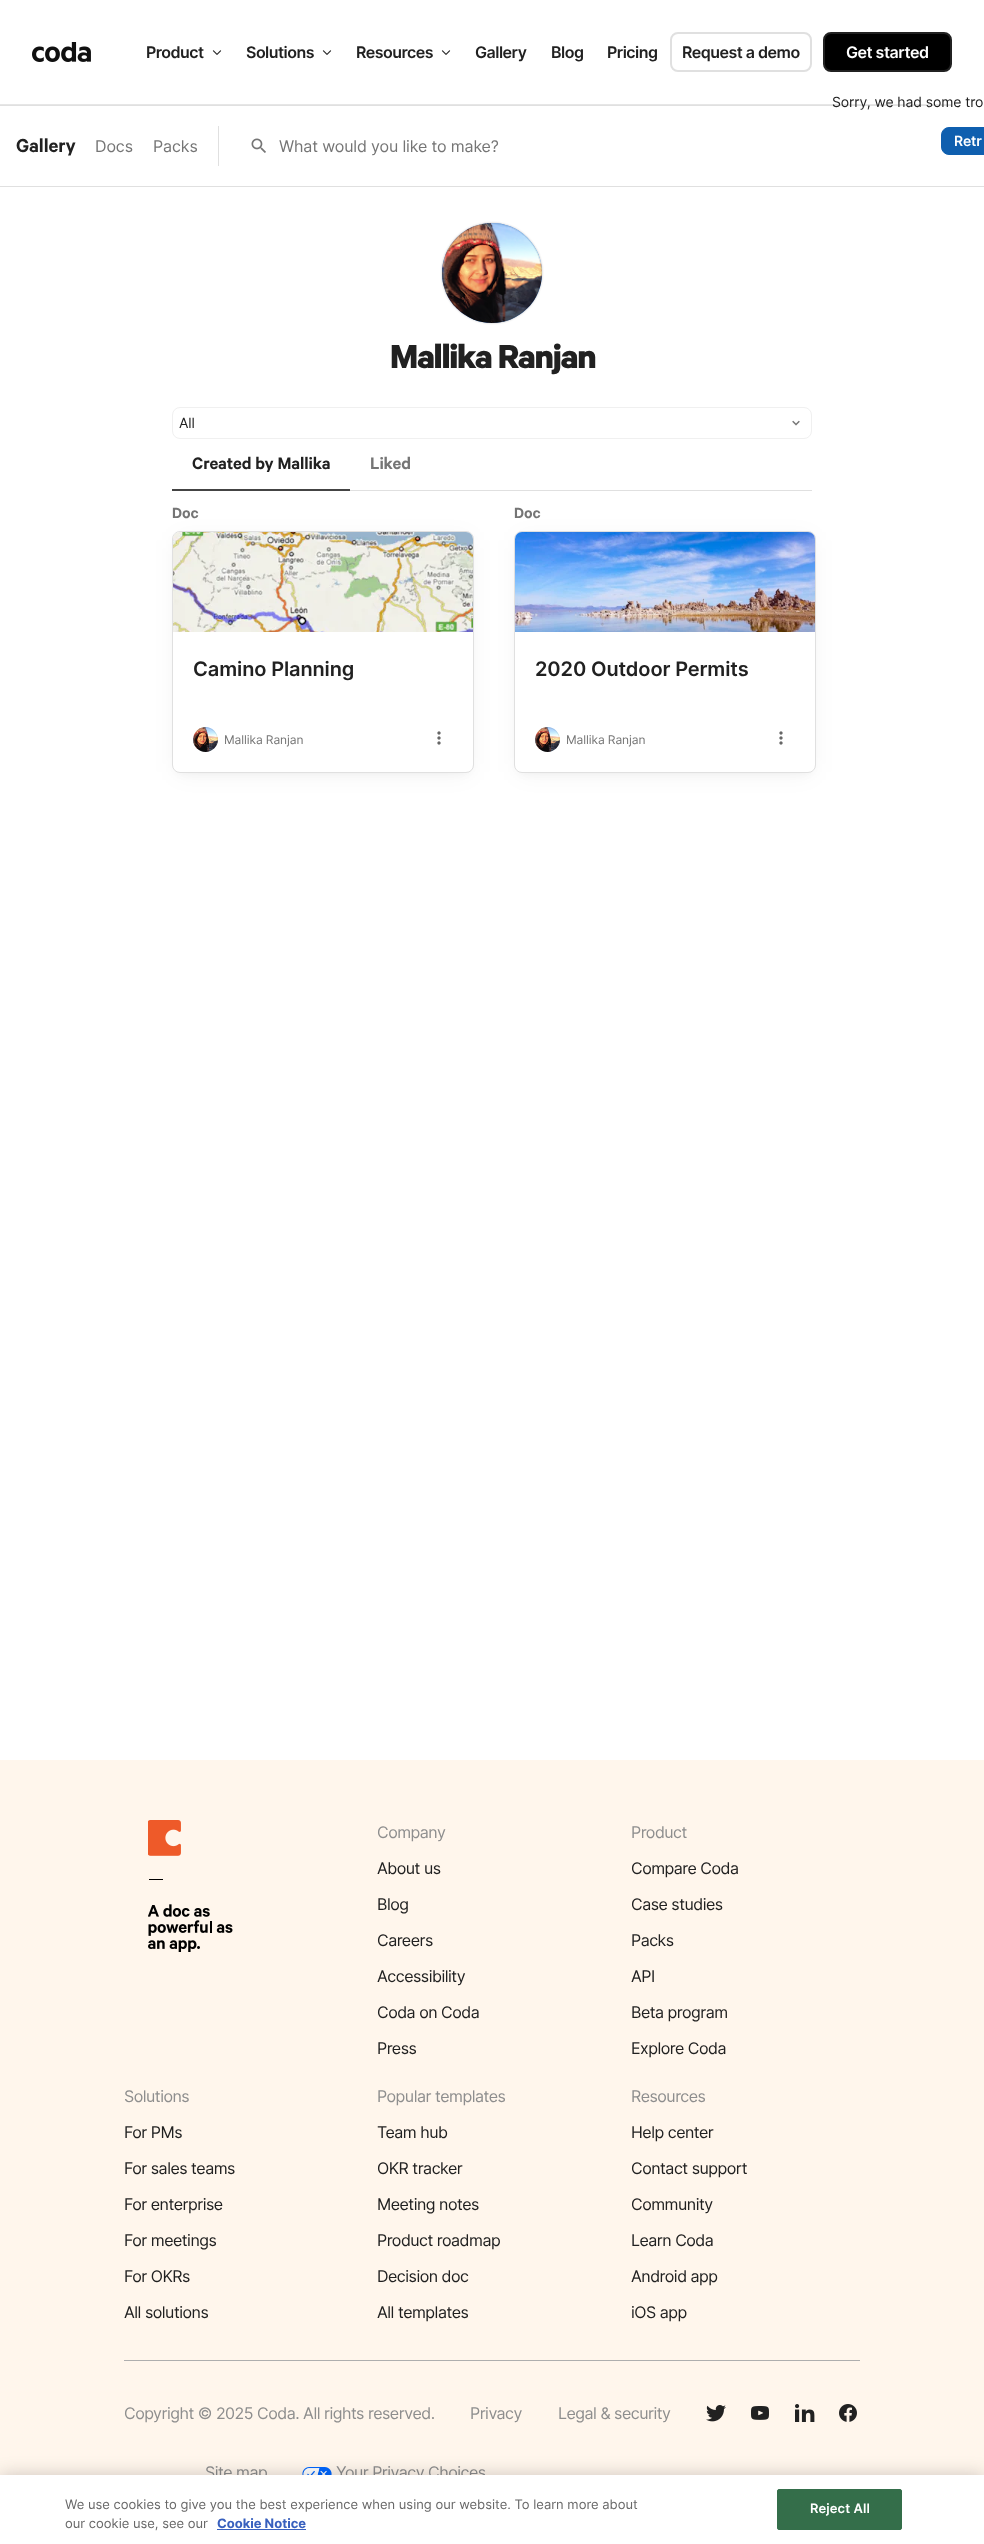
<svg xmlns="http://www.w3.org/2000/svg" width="984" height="2544">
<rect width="100%" height="100%" fill="#fff"/>
<rect y="104" width="952" height="1" fill="#e6e6e6"/>
<image x="32" y="42" width="59" height="20" href="media/1.png"/>
<text x="146" y="58" style="font-family:Inter;font-size:16px;font-weight:600;letter-spacing:-0.5px;fill:#212121">Product</text>
<image x="212" y="50" width="10" height="5" href="media/2.png"/>
<text x="246" y="58" style="font-family:Inter;font-size:16px;font-weight:600;letter-spacing:-0.5px;fill:#212121">Solutions</text>
<image x="322" y="50" width="10" height="5" href="media/2.png"/>
<text x="356" y="58" style="font-family:Inter;font-size:16px;font-weight:600;letter-spacing:-0.5px;fill:#212121">Resources</text>
<image x="441" y="50" width="10" height="5" href="media/2.png"/>
<text x="475" y="58" style="font-family:Inter;font-size:16px;font-weight:600;letter-spacing:-0.5px;fill:#212121">Gallery</text>
<text x="551" y="58" style="font-family:Inter;font-size:16px;font-weight:600;letter-spacing:-0.5px;fill:#212121">Blog</text>
<text x="607" y="58" style="font-family:Inter;font-size:16px;font-weight:600;letter-spacing:-0.5px;fill:#212121">Pricing</text>
<rect x="671" y="33" width="140" height="38" rx="7" fill="none" stroke="#e0e0e0" stroke-width="2"/>
<text x="682" y="58" style="font-family:Inter;font-size:16px;font-weight:600;letter-spacing:-0.5px;fill:#212121">Request a demo</text>
<rect x="824" y="33" width="127" height="38" rx="7" fill="#000" stroke="#212121" stroke-width="2"/>
<text x="846" y="58" style="font-family:Inter;font-size:16px;font-weight:600;letter-spacing:-0.5px;fill:#fff">Get started</text>
<rect y="105" width="952" height="1" fill="#e0e0e0"/>
<text x="832" y="107" style="font-family:Inter;font-size:14px;letter-spacing:-0.1px;fill:#212121">Sorry, we had some tro</text>
<rect x="941.5" y="127.5" width="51" height="27" rx="7.5" fill="#0f5faf" stroke="#0f5faf"/>
<text x="954" y="146" style="font-family:Inter;font-size:14px;font-weight:600;letter-spacing:-0.1px;fill:#fff">Retr</text>
<rect y="186" width="984" height="1" fill="#e0e0e0"/>
<text x="16" y="152" style="font-family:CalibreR;font-size:18px;font-weight:600;letter-spacing:-0.1px;fill:#212121">Gallery</text>
<text x="95" y="152" style="font-family:Inter;font-size:16px;letter-spacing:-0.1px;fill:#757575">Docs</text>
<text x="153" y="152" style="font-family:Inter;font-size:16px;letter-spacing:-0.1px;fill:#757575">Packs</text>
<rect x="218" y="126" width="1" height="40" fill="#e0e0e0"/>
<image x="251" y="138" width="15" height="15" href="media/3.png"/>
<text x="279" y="152" style="font-family:Inter;font-size:16px;letter-spacing:-0.15px;fill:#757575">What would you like to make?</text>
<rect x="442" y="223" width="100" height="100" rx="50" fill="#00000040" filter="blur(1px)"/>
<circle cx="492" cy="273" r="50" fill="#2f75d7"/>
<image x="442" y="223" width="100" height="100" href="media/4.png"/>
<circle cx="492" cy="273" r="49.5" fill="none" stroke="#00000014"/>
<text x="390" y="368" style="font-family:CalibreR;font-size:32px;font-weight:bold;letter-spacing:-1.25px;fill:#212121">Mallika Ranjan</text>
<rect x="172.5" y="407.5" width="639" height="31" rx="7.5" fill="none" stroke="#f0f0f0"/>
<text x="179" y="428" style="font-family:Inter;font-size:14px;letter-spacing:-0.1px;fill:#212121">All</text>
<image x="792" y="420" width="8" height="6" href="media/5.png"/>
<rect x="350" y="490" width="462" height="1" fill="#e0e0e0"/>
<rect x="172" y="489" width="178" height="2" fill="#444"/>
<text x="192" y="469" style="font-family:CalibreR;font-size:16px;font-weight:600;letter-spacing:-0.1px;fill:#212121">Created by Mallika</text>
<text x="370" y="469" style="font-family:CalibreR;font-size:16px;font-weight:600;letter-spacing:-0.1px;fill:#757575">Liked</text>
<text x="172" y="518" style="font-family:Inter;font-size:14px;font-weight:bold;letter-spacing:-0.1px;fill:#757575">Doc</text>
<rect x="177" y="540" width="292" height="232" rx="3" fill="#0000000f" filter="blur(12px)"/>
<rect x="178" y="542" width="290" height="230" rx="2" fill="#0000000f" filter="blur(5px)"/>
<rect x="172.5" y="531.5" width="301" height="241" rx="7.5" fill="#fff" stroke="#e0e0e0"/>
<image x="173" y="532" width="300" height="100" href="media/6.png"/>
<text x="193" y="676" style="font-family:Inter;font-size:20px;font-weight:600;letter-spacing:-0.1px;fill:#212121">Camino Planning</text>
<image x="193" y="727" width="25" height="25" href="media/7.png"/>
<circle cx="205.5" cy="739.5" r="12" fill="none" stroke="#00000014"/>
<text x="224" y="744" style="font-family:Inter;font-size:12px;letter-spacing:-0.1px;fill:#757575">Mallika Ranjan</text>
<image x="437" y="731" width="4" height="14" href="media/8.png"/>
<text x="514" y="518" style="font-family:Inter;font-size:14px;font-weight:bold;letter-spacing:-0.1px;fill:#757575">Doc</text>
<rect x="519" y="540" width="292" height="232" rx="3" fill="#0000000f" filter="blur(12px)"/>
<rect x="520" y="542" width="290" height="230" rx="2" fill="#0000000f" filter="blur(5px)"/>
<rect x="514.5" y="531.5" width="301" height="241" rx="7.5" fill="#fff" stroke="#e0e0e0"/>
<image x="515" y="532" width="300" height="100" href="media/9.png"/>
<text x="535" y="676" style="font-family:Inter;font-size:20px;font-weight:600;letter-spacing:-0.1px;fill:#212121">2020 Outdoor Permits</text>
<image x="535" y="727" width="25" height="25" href="media/10.png"/>
<circle cx="547.5" cy="739.5" r="12" fill="none" stroke="#00000014"/>
<text x="566" y="744" style="font-family:Inter;font-size:12px;letter-spacing:-0.1px;fill:#757575">Mallika Ranjan</text>
<image x="779" y="731" width="4" height="14" href="media/8.png"/>
<rect y="1760" width="984" height="715" fill="#fff6ec"/>
<image x="148" y="1820" width="85" height="132" href="media/11.png"/>
<text x="377" y="1838" style="font-family:Inter;font-size:16px;letter-spacing:-0.5px;fill:#8e8e8e">Company</text>
<text x="377" y="1874" style="font-family:Inter;font-size:16px;letter-spacing:-0.5px;fill:#212121">About us</text>
<text x="377" y="1910" style="font-family:Inter;font-size:16px;letter-spacing:-0.5px;fill:#212121">Blog</text>
<text x="377" y="1946" style="font-family:Inter;font-size:16px;letter-spacing:-0.5px;fill:#212121">Careers</text>
<text x="377" y="1982" style="font-family:Inter;font-size:16px;letter-spacing:-0.5px;fill:#212121">Accessibility</text>
<text x="377" y="2018" style="font-family:Inter;font-size:16px;letter-spacing:-0.5px;fill:#212121">Coda on Coda</text>
<text x="377" y="2054" style="font-family:Inter;font-size:16px;letter-spacing:-0.5px;fill:#212121">Press</text>
<text x="631" y="1838" style="font-family:Inter;font-size:16px;letter-spacing:-0.5px;fill:#8e8e8e">Product</text>
<text x="631" y="1874" style="font-family:Inter;font-size:16px;letter-spacing:-0.5px;fill:#212121">Compare Coda</text>
<text x="631" y="1910" style="font-family:Inter;font-size:16px;letter-spacing:-0.5px;fill:#212121">Case studies</text>
<text x="631" y="1946" style="font-family:Inter;font-size:16px;letter-spacing:-0.5px;fill:#212121">Packs</text>
<text x="631" y="1982" style="font-family:Inter;font-size:16px;letter-spacing:-0.5px;fill:#212121">API</text>
<text x="631" y="2018" style="font-family:Inter;font-size:16px;letter-spacing:-0.5px;fill:#212121">Beta program</text>
<text x="631" y="2054" style="font-family:Inter;font-size:16px;letter-spacing:-0.5px;fill:#212121">Explore Coda</text>
<text x="124" y="2102" style="font-family:Inter;font-size:16px;letter-spacing:-0.5px;fill:#8e8e8e">Solutions</text>
<text x="124" y="2138" style="font-family:Inter;font-size:16px;letter-spacing:-0.5px;fill:#212121">For PMs</text>
<text x="124" y="2174" style="font-family:Inter;font-size:16px;letter-spacing:-0.5px;fill:#212121">For sales teams</text>
<text x="124" y="2210" style="font-family:Inter;font-size:16px;letter-spacing:-0.5px;fill:#212121">For enterprise</text>
<text x="124" y="2246" style="font-family:Inter;font-size:16px;letter-spacing:-0.5px;fill:#212121">For meetings</text>
<text x="124" y="2282" style="font-family:Inter;font-size:16px;letter-spacing:-0.5px;fill:#212121">For OKRs</text>
<text x="124" y="2318" style="font-family:Inter;font-size:16px;letter-spacing:-0.5px;fill:#212121">All solutions</text>
<text x="377" y="2102" style="font-family:Inter;font-size:16px;letter-spacing:-0.5px;fill:#8e8e8e">Popular templates</text>
<text x="377" y="2138" style="font-family:Inter;font-size:16px;letter-spacing:-0.5px;fill:#212121">Team hub</text>
<text x="377" y="2174" style="font-family:Inter;font-size:16px;letter-spacing:-0.5px;fill:#212121">OKR tracker</text>
<text x="377" y="2210" style="font-family:Inter;font-size:16px;letter-spacing:-0.5px;fill:#212121">Meeting notes</text>
<text x="377" y="2246" style="font-family:Inter;font-size:16px;letter-spacing:-0.5px;fill:#212121">Product roadmap</text>
<text x="377" y="2282" style="font-family:Inter;font-size:16px;letter-spacing:-0.5px;fill:#212121">Decision doc</text>
<text x="377" y="2318" style="font-family:Inter;font-size:16px;letter-spacing:-0.5px;fill:#212121">All templates</text>
<text x="631" y="2102" style="font-family:Inter;font-size:16px;letter-spacing:-0.5px;fill:#8e8e8e">Resources</text>
<text x="631" y="2138" style="font-family:Inter;font-size:16px;letter-spacing:-0.5px;fill:#212121">Help center</text>
<text x="631" y="2174" style="font-family:Inter;font-size:16px;letter-spacing:-0.5px;fill:#212121">Contact support</text>
<text x="631" y="2210" style="font-family:Inter;font-size:16px;letter-spacing:-0.5px;fill:#212121">Community</text>
<text x="631" y="2246" style="font-family:Inter;font-size:16px;letter-spacing:-0.5px;fill:#212121">Learn Coda</text>
<text x="631" y="2282" style="font-family:Inter;font-size:16px;letter-spacing:-0.5px;fill:#212121">Android app</text>
<text x="631" y="2318" style="font-family:Inter;font-size:16px;letter-spacing:-0.5px;fill:#212121">iOS app</text>
<rect x="124" y="2360" width="736" height="1" fill="#aeaeae"/>
<text x="124" y="2419" style="font-family:Inter;font-size:16px;letter-spacing:-0.5px;fill:#8e8e8e">Copyright © 2025 Coda. All rights reserved.</text>
<text x="470" y="2419" style="font-family:Inter;font-size:16px;letter-spacing:-0.5px;fill:#8e8e8e">Privacy</text>
<text x="558" y="2419" style="font-family:Inter;font-size:16px;letter-spacing:-0.5px;fill:#8e8e8e">Legal &amp; security</text>
<text x="205" y="2478" style="font-family:Inter;font-size:16px;letter-spacing:-0.5px;fill:#8e8e8e">Site map</text>
<image x="302" y="2467" width="30" height="8" href="media/12.png"/>
<text x="336" y="2478" style="font-family:Inter;font-size:16px;letter-spacing:-0.5px;fill:#8e8e8e">Your Privacy Choices</text>
<image x="706" y="2405" width="20" height="17" href="media/13.png"/>
<image x="751" y="2406" width="18" height="14" href="media/14.png"/>
<image x="795" y="2404" width="20" height="18" href="media/15.png"/>
<image x="839" y="2404" width="18" height="18" href="media/16.png"/>
<rect y="2475" width="984" height="69" fill="#00000033" filter="blur(9px)"/>
<rect y="2475" width="984" height="69" fill="#fff"/>
<text x="65" y="2509" style="font-family:Inter;font-size:13px;fill:#696969">We use cookies to give you the best experience when using our website. To learn more about</text>
<text x="65" y="2528" style="font-family:Inter;font-size:13px;fill:#696969">our cookie use, see our</text>
<text x="217" y="2528" style="font-family:Inter;font-size:13px;font-weight:bold;fill:#3860be">Cookie Notice</text>
<rect x="217" y="2529" width="89" height="1" fill="#3860be"/>
<rect x="777.5" y="2489.5" width="124" height="40" rx="1.5" fill="#346e4a" stroke="#346e4a"/>
<text x="810" y="2513" style="font-family:Inter;font-size:13px;font-weight:600;letter-spacing:0.1px;fill:#fff">Reject All</text>
</svg>
